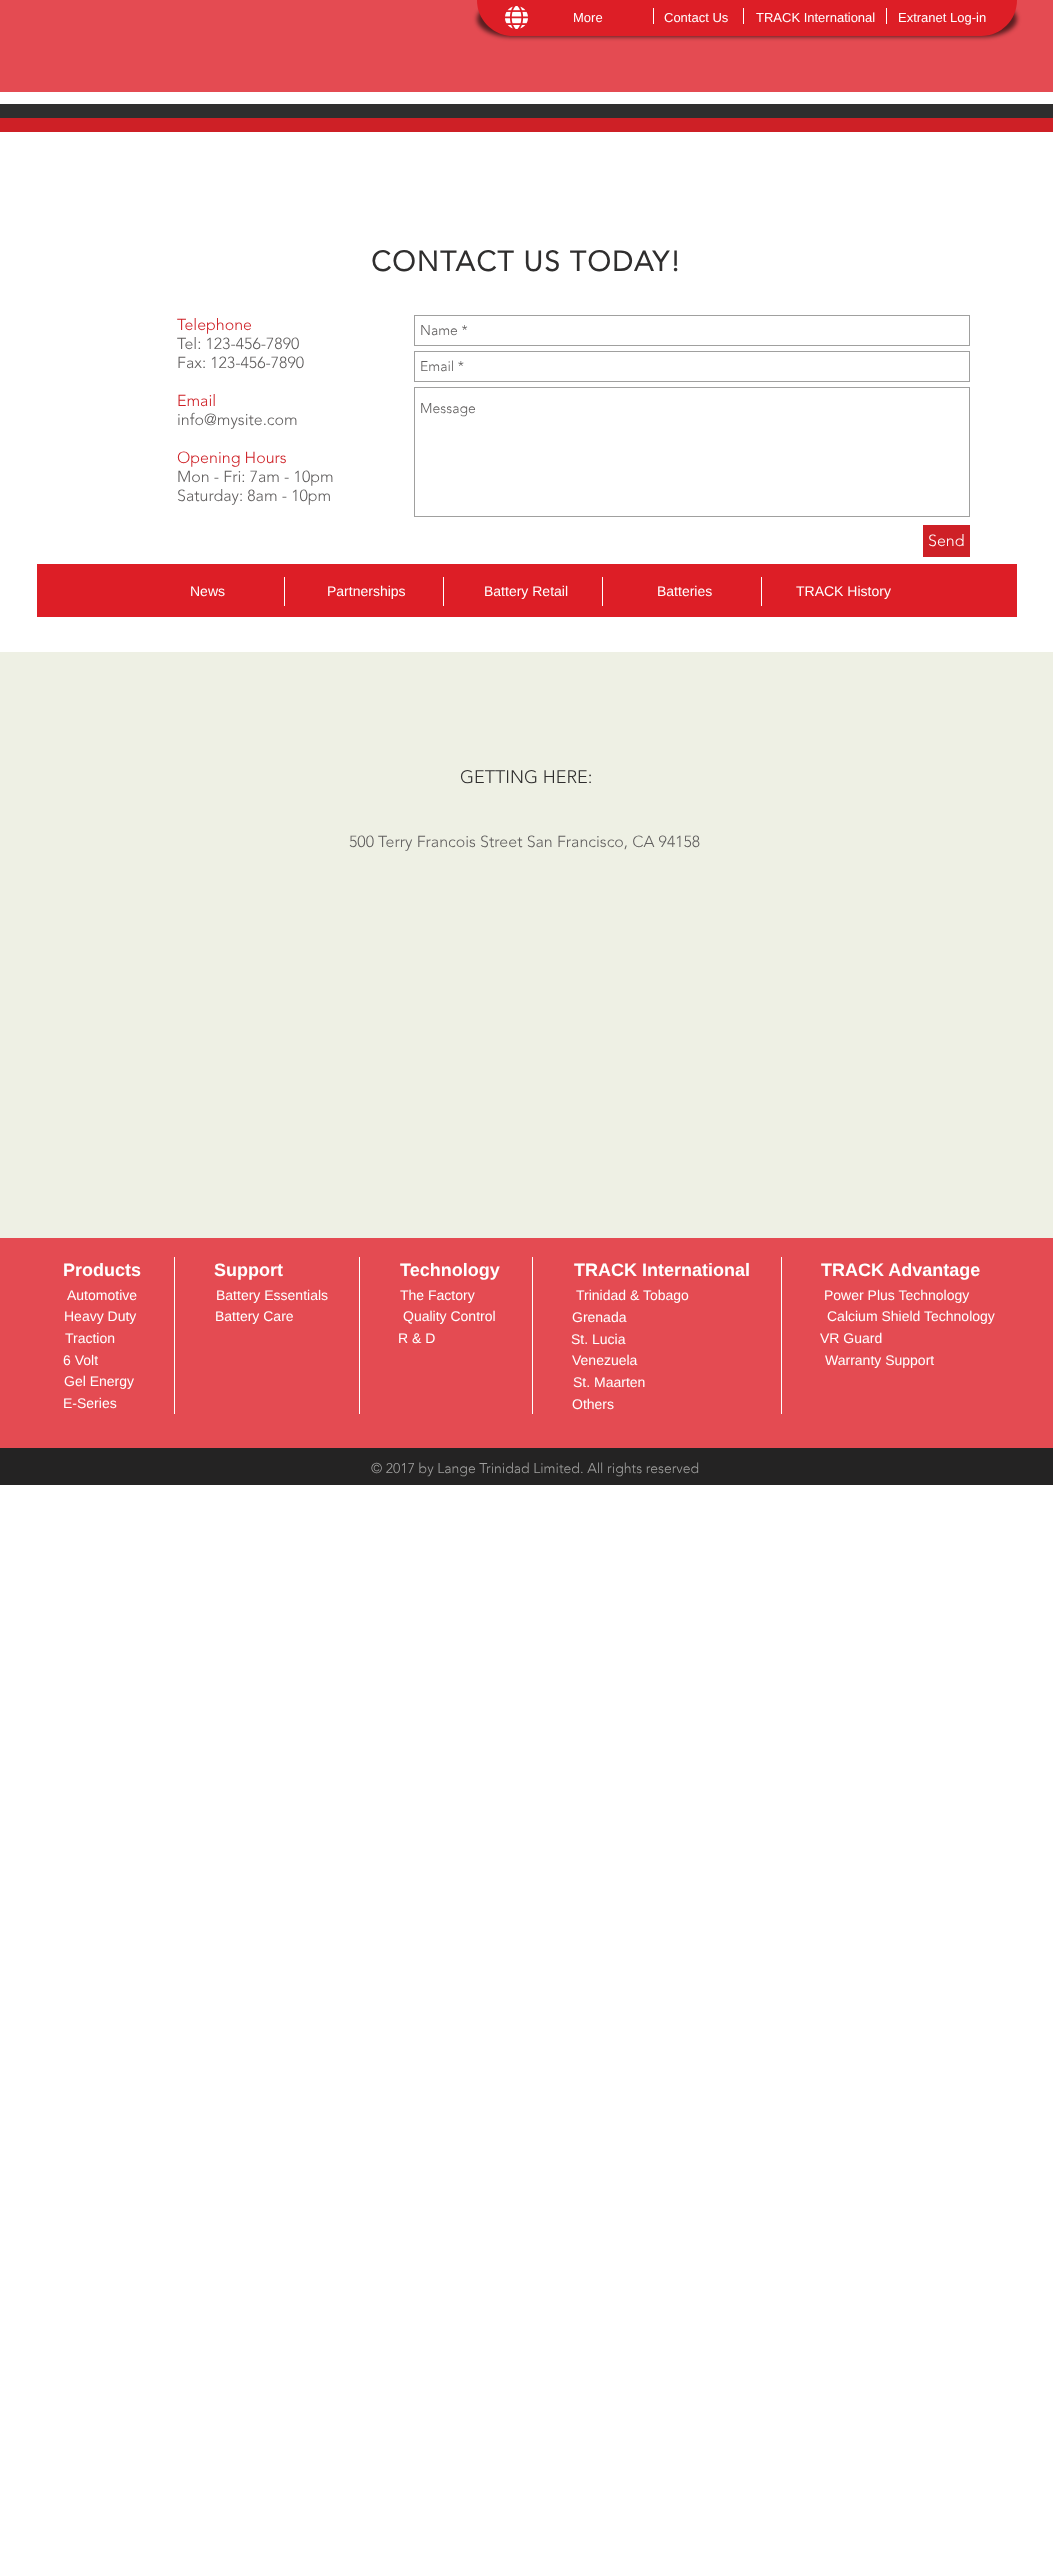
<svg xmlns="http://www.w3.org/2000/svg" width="1053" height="2563">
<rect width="100%" height="100%" fill="#fff"/>
<rect width="1053" height="92" fill="#e44b52"/>
<rect x="477" y="1" width="540" height="36" rx="36" fill="#00000099" filter="blur(2px)"/>
<path d="M477 0h540c0 20-16 36-36 36h-468c-20 0-36-16-36-36z" fill="#dd1e26"/>
<image x="505" y="6" width="23" height="23" href="media/1.png"/>
<text x="573" y="22" style="font-family:Liberation Sans;font-size:13px;fill:#fff">More</text>
<rect x="653" y="8" width="1" height="16" fill="#fff"/>
<text x="664" y="22" style="font-family:Liberation Sans;font-size:13px;fill:#fff">Contact Us</text>
<rect x="743" y="8" width="1" height="16" fill="#fff"/>
<text x="756" y="22" style="font-family:Liberation Sans;font-size:13px;fill:#fff">TRACK International</text>
<rect x="886" y="8" width="1" height="16" fill="#fff"/>
<text x="898" y="22" style="font-family:Liberation Sans;font-size:13px;fill:#fff">Extranet Log-in</text>
<rect y="104" width="1053" height="14" fill="#2f2e2e"/>
<rect y="118" width="1053" height="14" fill="#ce2026"/>
<text x="371" y="271" style="font-family:'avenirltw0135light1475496';font-size:28px;font-weight:bold;letter-spacing:1.4px;fill:#2f2e2e">CONTACT US TODAY!</text>
<text x="177" y="330" style="font-family:'avenirltw0135light1475496';font-size:16px;font-weight:300;fill:#ce2026">Telephone</text>
<text x="177" y="349" style="font-family:'avenirltw0135light1475496';font-size:16px;font-weight:300;fill:#605e5e">Tel: 123-456-7890</text>
<text x="177" y="368" style="font-family:'avenirltw0135light1475496';font-size:16px;font-weight:300;fill:#605e5e">Fax: 123-456-7890</text>
<text x="177" y="406" style="font-family:'avenirltw0135light1475496';font-size:16px;font-weight:300;fill:#ce2026">Email</text>
<text x="177" y="425" style="font-family:'avenirltw0135light1475496';font-size:16px;font-weight:300;fill:#605e5e">info@mysite.com</text>
<text x="177" y="463" style="font-family:'avenirltw0135light1475496';font-size:16px;font-weight:300;fill:#ce2026">Opening Hours</text>
<text x="177" y="482" style="font-family:'avenirltw0135light1475496';font-size:16px;font-weight:300;fill:#605e5e">Mon - Fri: 7am - 10pm</text>
<text x="177" y="501" style="font-family:'avenirltw0135light1475496';font-size:16px;font-weight:300;fill:#605e5e">Saturday: 8am - 10pm</text>
<rect x="414.5" y="315.5" width="555" height="30" fill="none" stroke="#a0a09f"/>
<text x="420" y="335" style="font-family:'avenirltw0135light1475496';font-size:14px;font-weight:300;fill:#605e5e">Name *</text>
<rect x="414.5" y="351.5" width="555" height="30" fill="none" stroke="#a0a09f"/>
<text x="420" y="371" style="font-family:'avenirltw0135light1475496';font-size:14px;font-weight:300;fill:#605e5e">Email *</text>
<rect x="414.5" y="387.5" width="555" height="129" fill="none" stroke="#a0a09f"/>
<text x="420" y="413" style="font-family:'avenirltw0135light1475496';font-size:14px;font-weight:300;fill:#605e5e">Message</text>
<rect x="923" y="525" width="47" height="32" fill="#ce2026"/>
<text x="928" y="546" style="font-family:'avenirltw0135light1475496';font-size:16px;font-weight:300;fill:#fff">Send</text>
<rect x="37" y="564" width="980" height="53" fill="#dd1e26"/>
<rect x="284" y="577" width="1" height="29" fill="#fff"/>
<rect x="443" y="577" width="1" height="29" fill="#fff"/>
<rect x="602" y="577" width="1" height="29" fill="#fff"/>
<rect x="761" y="577" width="1" height="29" fill="#fff"/>
<text x="190" y="596" style="font-family:Liberation Sans;font-size:14px;fill:#fff">News</text>
<text x="327" y="596" style="font-family:Liberation Sans;font-size:14px;fill:#fff">Partnerships</text>
<text x="484" y="596" style="font-family:Liberation Sans;font-size:14px;fill:#fff">Battery Retail</text>
<text x="657" y="596" style="font-family:Liberation Sans;font-size:14px;fill:#fff">Batteries</text>
<text x="796" y="596" style="font-family:Liberation Sans;font-size:14px;fill:#fff">TRACK History</text>
<rect y="652" width="1053" height="586" fill="#eef0e4"/>
<text x="460" y="783" style="font-family:'avenirltw0135light1475496';font-size:18px;font-weight:300;fill:#2f2e2e">GETTING HERE:</text>
<text x="349" y="847" style="font-family:'avenirltw0135light1475496';font-size:16px;font-weight:300;fill:#605e5e">500 Terry Francois Street San Francisco, CA 94158</text>
<rect y="1238" width="1053" height="210" fill="#e44b52"/>
<text x="63" y="1276" style="font-family:Liberation Sans;font-size:18px;font-weight:bold;fill:#fff">Products</text>
<text x="67" y="1300" style="font-family:Liberation Sans;font-size:14px;fill:#fff">Automotive</text>
<text x="64" y="1321" style="font-family:Liberation Sans;font-size:14px;fill:#fff">Heavy Duty</text>
<text x="65" y="1343" style="font-family:Liberation Sans;font-size:14px;fill:#fff">Traction</text>
<text x="63" y="1365" style="font-family:Liberation Sans;font-size:14px;fill:#fff">6 Volt</text>
<text x="64" y="1386" style="font-family:Liberation Sans;font-size:14px;fill:#fff">Gel Energy</text>
<text x="63" y="1408" style="font-family:Liberation Sans;font-size:14px;fill:#fff">E-Series</text>
<rect x="174" y="1257" width="1" height="157" fill="#fff"/>
<text x="214" y="1276" style="font-family:Liberation Sans;font-size:18px;font-weight:bold;fill:#fff">Support</text>
<text x="216" y="1300" style="font-family:Liberation Sans;font-size:14px;fill:#fff">Battery Essentials</text>
<text x="215" y="1321" style="font-family:Liberation Sans;font-size:14px;fill:#fff">Battery Care</text>
<rect x="359" y="1257" width="1" height="157" fill="#fff"/>
<text x="400" y="1276" style="font-family:Liberation Sans;font-size:18px;font-weight:bold;fill:#fff">Technology</text>
<text x="400" y="1300" style="font-family:Liberation Sans;font-size:14px;fill:#fff">The Factory</text>
<text x="403" y="1321" style="font-family:Liberation Sans;font-size:14px;fill:#fff">Quality Control</text>
<text x="398" y="1343" style="font-family:Liberation Sans;font-size:14px;fill:#fff">R &amp; D</text>
<rect x="532" y="1257" width="1" height="157" fill="#fff"/>
<text x="574" y="1276" style="font-family:Liberation Sans;font-size:18px;font-weight:bold;fill:#fff">TRACK International</text>
<text x="576" y="1300" style="font-family:Liberation Sans;font-size:14px;fill:#fff">Trinidad &amp; Tobago</text>
<text x="572" y="1322" style="font-family:Liberation Sans;font-size:14px;fill:#fff">Grenada</text>
<text x="571" y="1344" style="font-family:Liberation Sans;font-size:14px;fill:#fff">St. Lucia</text>
<text x="572" y="1365" style="font-family:Liberation Sans;font-size:14px;fill:#fff">Venezuela</text>
<text x="572" y="1409" style="font-family:Liberation Sans;font-size:14px;fill:#fff">Others</text>
<rect x="781" y="1257" width="1" height="157" fill="#fff"/>
<text x="821" y="1276" style="font-family:Liberation Sans;font-size:18px;font-weight:bold;fill:#fff">TRACK Advantage</text>
<text x="824" y="1300" style="font-family:Liberation Sans;font-size:14px;fill:#fff">Power Plus Technology</text>
<text x="827" y="1321" style="font-family:Liberation Sans;font-size:14px;fill:#fff">Calcium Shield Technology</text>
<text x="820" y="1343" style="font-family:Liberation Sans;font-size:14px;fill:#fff">VR Guard</text>
<text x="825" y="1365" style="font-family:Liberation Sans;font-size:14px;fill:#fff">Warranty Support</text>
<text x="573" y="1387" style="font-family:Liberation Sans;font-size:14px;fill:#fff">St. Maarten</text>
<rect y="1448" width="1053" height="37" fill="#242323"/>
<text x="371" y="1473" style="font-family:'avenirltw0135light1475496';font-size:14px;font-weight:300;fill:#a0a09f">© 2017 by Lange Trinidad Limited. All rights reserved</text>
</svg>
